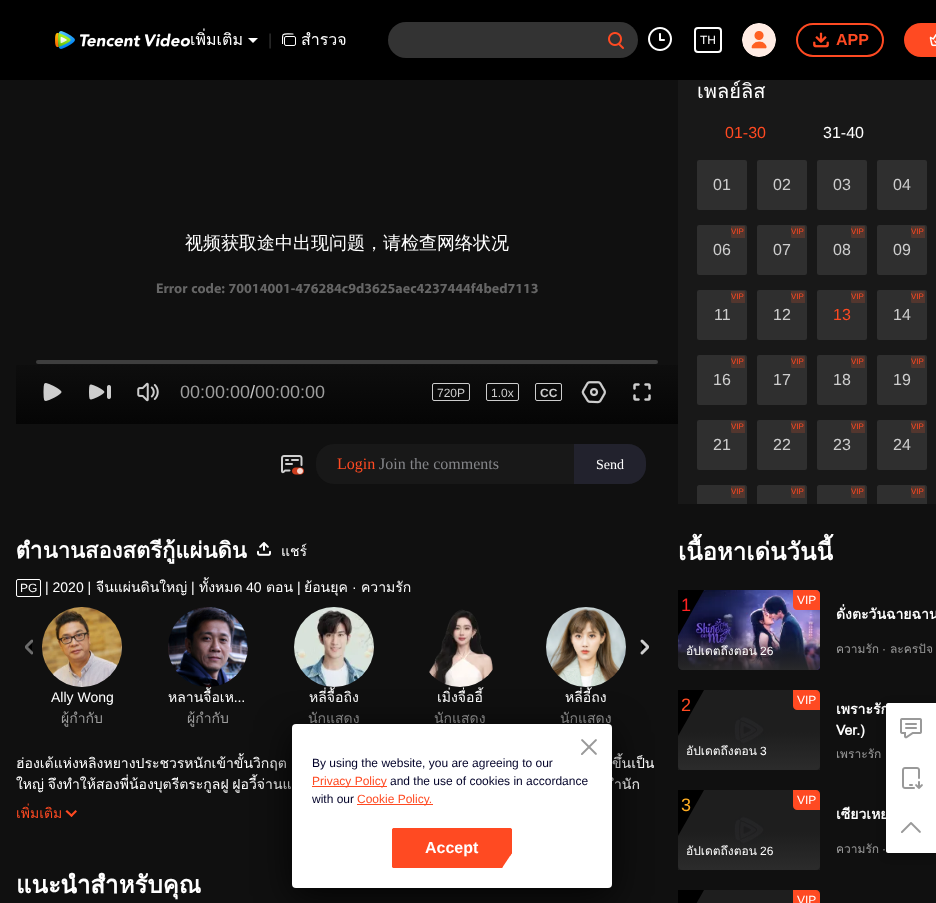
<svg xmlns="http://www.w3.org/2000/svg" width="936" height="903">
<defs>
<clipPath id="clip1"><rect x="282" y="33" width="14" height="14"/></clipPath>
<linearGradient id="g1" gradientUnits="userSpaceOnUse" x1="347" y1="340" x2="347" y2="424"><stop offset="0" stop-color="#111"/><stop offset="1" stop-color="#050505"/></linearGradient>
<clipPath id="clip2"><rect x="23" y="639" width="10" height="16"/></clipPath>
<clipPath id="clip3"><rect x="16" y="753" width="642" height="40"/></clipPath>
<linearGradient id="g2" gradientUnits="userSpaceOnUse" x1="749" y1="670" x2="749" y2="632"><stop offset="0" stop-color="#2d2d2d" stop-opacity="0.9"/><stop offset="1" stop-color="#2d2d2d" stop-opacity="0"/></linearGradient>
<clipPath id="clip4"><rect x="836" y="604" width="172" height="21"/></clipPath>
<linearGradient id="g3" gradientUnits="userSpaceOnUse" x1="749" y1="770" x2="749" y2="732"><stop offset="0" stop-color="#2d2d2d" stop-opacity="0.9"/><stop offset="1" stop-color="#2d2d2d" stop-opacity="0"/></linearGradient>
<linearGradient id="g4" gradientUnits="userSpaceOnUse" x1="749" y1="870" x2="749" y2="832"><stop offset="0" stop-color="#2d2d2d" stop-opacity="0.9"/><stop offset="1" stop-color="#2d2d2d" stop-opacity="0"/></linearGradient>
<clipPath id="clip5"><rect x="836" y="804" width="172" height="21"/></clipPath>
</defs>
<rect width="100%" height="100%" fill="#101010"/>
<rect width="936" height="80" fill="#000"/>
<image x="55" y="31" width="135" height="18" href="media/1.png"/>
<text x="190" y="45" style="font-family:Loma;font-size:16px;fill:#fff">เพิ่มเติม</text>
<path d="M248 38h10l-5 5z" fill="#fff"/>
<text x="268" y="45" style="font-family:Liberation Sans;font-size:16px;fill:#333">|</text>
<rect x="284.5" y="36.5" width="11" height="9" rx="1.5" fill="none" stroke="#fff"/>
<g clip-path="url(#clip1)">
<path d="M293 34c-11.5 0-10.5-2-10.5 9.5" fill="none" stroke="#fff" stroke-width="1.2" stroke-linecap="round"/>
</g>
<text x="301" y="45" style="font-family:Loma;font-size:16px;fill:#fff">สำรวจ</text>
<rect x="388" y="22" width="250" height="36" rx="18" fill="#333"/>
<image x="608" y="32" width="16" height="17" href="media/2.png"/>
<image x="648" y="27" width="24" height="24" href="media/3.png"/>
<rect x="695" y="28" width="26" height="24" rx="3" fill="none" stroke="#fff" stroke-width="2"/>
<text x="700" y="44" style="font-family:Liberation Sans;font-size:12px;fill:#fff">TH</text>
<image x="742" y="23" width="34" height="34" href="media/4.png"/>
<rect x="797" y="24" width="86" height="32" rx="16" fill="none" stroke="#ff4a22" stroke-width="2"/>
<image x="813" y="32" width="16" height="16" href="media/5.png"/>
<text x="836" y="45" style="font-family:Liberation Sans;font-size:16px;font-weight:bold;fill:#ff4a22">APP</text>
<rect x="904" y="23" width="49" height="34" rx="17" fill="#ff4a22"/>
<image x="929" y="34" width="7" height="13" href="media/6.png"/>
<text x="185" y="249" style="font-family:WenQuanYi Zen Hei;font-size:18px;font-weight:500;fill:#fff">视频获取途中出现问题，请检查网络状况</text>
<text x="156" y="293" style="font-family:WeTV;font-size:14px;font-weight:bold;fill:#666">Error code: 70014001-476284c9d3625aec4237444f4bed7113</text>
<rect x="16" y="365" width="662" height="59" fill="url(#g1)"/>
<rect x="36" y="360" width="622" height="4" rx="2" fill="#3e3e3e"/>
<image x="43" y="383" width="19" height="18" href="media/7.png"/>
<image x="89" y="384" width="22" height="16" href="media/8.png"/>
<image x="137" y="382" width="22" height="20" href="media/9.png"/>
<text x="180" y="398" style="font-family:Liberation Sans;font-size:18px;fill:#9d9d9d">00:00:00</text>
<text x="250" y="398" style="font-family:Liberation Sans;font-size:18px;fill:#cecece">/</text>
<text x="255" y="398" style="font-family:Liberation Sans;font-size:18px;fill:#9d9d9d">00:00:00</text>
<rect x="432.5" y="383.5" width="37" height="17" rx="1.5" fill="none" stroke="#ffffffcc"/>
<text x="437" y="397" style="font-family:Liberation Sans;font-size:12px;fill:#cecece">720P</text>
<rect x="486.5" y="383.5" width="32" height="17" rx="1.5" fill="none" stroke="#ffffffcc"/>
<text x="491" y="397" style="font-family:Liberation Sans;font-size:12px;fill:#cecece">1.0x</text>
<rect x="535.5" y="383.5" width="26" height="17" rx="1.5" fill="none" stroke="#ffffffcc"/>
<text x="540" y="397" style="font-family:Liberation Sans;font-size:12px;font-weight:bold;fill:#cecece">CC</text>
<image x="581" y="381" width="25" height="23" href="media/10.png"/>
<image x="633" y="383" width="18" height="18" href="media/11.png"/>
<image x="281" y="455" width="23" height="20" href="media/12.png"/>
<rect x="316" y="444" width="330" height="40" rx="18" fill="#181818"/>
<text x="337" y="469" style="font-family:Liberation Serif;font-size:16px;fill:#ff4a22">Login</text>
<text x="379" y="469" style="font-family:Liberation Serif;font-size:16px;fill:#85868a">Join the comments</text>
<path d="M574 444h54c10 0 18 8 18 18v4c0 10-8 18-18 18h-54z" fill="#292a3c99"/>
<text x="596" y="469" style="font-family:Liberation Serif;font-size:14px;fill:#fff">Send</text>
<rect x="678" y="80" width="258" height="424" fill="#181818"/>
<text x="697" y="98" style="font-family:Loma;font-size:20px;fill:#fff">เพลย์ลิส</text>
<text x="725" y="138" style="font-family:Liberation Sans;font-size:16px;fill:#ff4a22">01-30</text>
<text x="823" y="138" style="font-family:Liberation Sans;font-size:16px;fill:#fff">31-40</text>
<rect x="697" y="160" width="50" height="50" rx="2" fill="#2f2f2f"/>
<text x="713" y="190" style="font-family:Liberation Sans;font-size:16px;fill:#cecece">01</text>
<rect x="757" y="160" width="50" height="50" rx="2" fill="#2f2f2f"/>
<text x="773" y="190" style="font-family:Liberation Sans;font-size:16px;fill:#cecece">02</text>
<rect x="817" y="160" width="50" height="50" rx="2" fill="#2f2f2f"/>
<text x="833" y="190" style="font-family:Liberation Sans;font-size:16px;fill:#cecece">03</text>
<rect x="877" y="160" width="50" height="50" rx="2" fill="#2f2f2f"/>
<text x="893" y="190" style="font-family:Liberation Sans;font-size:16px;fill:#cecece">04</text>
<rect x="697" y="225" width="50" height="50" rx="2" fill="#2f2f2f"/>
<path d="M731 226h12.5c1 0 1.5 .5 1.5 1.5v10.5h-12.5c-1 0-1.5-.5-1.5-1.5z" fill="#53362e"/>
<text x="731" y="234" style="font-family:Liberation Sans;font-size:8px;fill:#ff4a22">VIP</text>
<text x="713" y="255" style="font-family:Liberation Sans;font-size:16px;fill:#cecece">06</text>
<rect x="757" y="225" width="50" height="50" rx="2" fill="#2f2f2f"/>
<path d="M791 226h12.5c1 0 1.5 .5 1.5 1.5v10.5h-12.5c-1 0-1.5-.5-1.5-1.5z" fill="#53362e"/>
<text x="791" y="234" style="font-family:Liberation Sans;font-size:8px;fill:#ff4a22">VIP</text>
<text x="773" y="255" style="font-family:Liberation Sans;font-size:16px;fill:#cecece">07</text>
<rect x="817" y="225" width="50" height="50" rx="2" fill="#2f2f2f"/>
<path d="M851 226h12.5c1 0 1.5 .5 1.5 1.5v10.5h-12.5c-1 0-1.5-.5-1.5-1.5z" fill="#53362e"/>
<text x="851" y="234" style="font-family:Liberation Sans;font-size:8px;fill:#ff4a22">VIP</text>
<text x="833" y="255" style="font-family:Liberation Sans;font-size:16px;fill:#cecece">08</text>
<rect x="877" y="225" width="50" height="50" rx="2" fill="#2f2f2f"/>
<path d="M911 226h12.5c1 0 1.5 .5 1.5 1.5v10.5h-12.5c-1 0-1.5-.5-1.5-1.5z" fill="#53362e"/>
<text x="911" y="234" style="font-family:Liberation Sans;font-size:8px;fill:#ff4a22">VIP</text>
<text x="893" y="255" style="font-family:Liberation Sans;font-size:16px;fill:#cecece">09</text>
<rect x="697" y="290" width="50" height="50" rx="2" fill="#2f2f2f"/>
<path d="M731 291h12.5c1 0 1.5 .5 1.5 1.5v10.5h-12.5c-1 0-1.5-.5-1.5-1.5z" fill="#53362e"/>
<text x="731" y="299" style="font-family:Liberation Sans;font-size:8px;fill:#ff4a22">VIP</text>
<text x="714" y="320" style="font-family:Liberation Sans;font-size:16px;fill:#cecece">11</text>
<rect x="757" y="290" width="50" height="50" rx="2" fill="#2f2f2f"/>
<path d="M791 291h12.5c1 0 1.5 .5 1.5 1.5v10.5h-12.5c-1 0-1.5-.5-1.5-1.5z" fill="#53362e"/>
<text x="791" y="299" style="font-family:Liberation Sans;font-size:8px;fill:#ff4a22">VIP</text>
<text x="773" y="320" style="font-family:Liberation Sans;font-size:16px;fill:#cecece">12</text>
<rect x="817" y="290" width="50" height="50" rx="2" fill="#2f2f2f"/>
<path d="M851 291h12.5c1 0 1.5 .5 1.5 1.5v10.5h-12.5c-1 0-1.5-.5-1.5-1.5z" fill="#53362e"/>
<text x="851" y="299" style="font-family:Liberation Sans;font-size:8px;fill:#ff4a22">VIP</text>
<text x="833" y="320" style="font-family:Liberation Sans;font-size:16px;fill:#ff4a22">13</text>
<rect x="877" y="290" width="50" height="50" rx="2" fill="#2f2f2f"/>
<path d="M911 291h12.5c1 0 1.5 .5 1.5 1.5v10.5h-12.5c-1 0-1.5-.5-1.5-1.5z" fill="#53362e"/>
<text x="911" y="299" style="font-family:Liberation Sans;font-size:8px;fill:#ff4a22">VIP</text>
<text x="893" y="320" style="font-family:Liberation Sans;font-size:16px;fill:#cecece">14</text>
<rect x="697" y="355" width="50" height="50" rx="2" fill="#2f2f2f"/>
<path d="M731 356h12.5c1 0 1.5 .5 1.5 1.5v10.5h-12.5c-1 0-1.5-.5-1.5-1.5z" fill="#53362e"/>
<text x="731" y="364" style="font-family:Liberation Sans;font-size:8px;fill:#ff4a22">VIP</text>
<text x="713" y="385" style="font-family:Liberation Sans;font-size:16px;fill:#cecece">16</text>
<rect x="757" y="355" width="50" height="50" rx="2" fill="#2f2f2f"/>
<path d="M791 356h12.5c1 0 1.5 .5 1.5 1.5v10.5h-12.5c-1 0-1.5-.5-1.5-1.5z" fill="#53362e"/>
<text x="791" y="364" style="font-family:Liberation Sans;font-size:8px;fill:#ff4a22">VIP</text>
<text x="773" y="385" style="font-family:Liberation Sans;font-size:16px;fill:#cecece">17</text>
<rect x="817" y="355" width="50" height="50" rx="2" fill="#2f2f2f"/>
<path d="M851 356h12.5c1 0 1.5 .5 1.5 1.5v10.5h-12.5c-1 0-1.5-.5-1.5-1.5z" fill="#53362e"/>
<text x="851" y="364" style="font-family:Liberation Sans;font-size:8px;fill:#ff4a22">VIP</text>
<text x="833" y="385" style="font-family:Liberation Sans;font-size:16px;fill:#cecece">18</text>
<rect x="877" y="355" width="50" height="50" rx="2" fill="#2f2f2f"/>
<path d="M911 356h12.5c1 0 1.5 .5 1.5 1.5v10.5h-12.5c-1 0-1.5-.5-1.5-1.5z" fill="#53362e"/>
<text x="911" y="364" style="font-family:Liberation Sans;font-size:8px;fill:#ff4a22">VIP</text>
<text x="893" y="385" style="font-family:Liberation Sans;font-size:16px;fill:#cecece">19</text>
<rect x="697" y="420" width="50" height="50" rx="2" fill="#2f2f2f"/>
<path d="M731 421h12.5c1 0 1.5 .5 1.5 1.5v10.5h-12.5c-1 0-1.5-.5-1.5-1.5z" fill="#53362e"/>
<text x="731" y="429" style="font-family:Liberation Sans;font-size:8px;fill:#ff4a22">VIP</text>
<text x="713" y="450" style="font-family:Liberation Sans;font-size:16px;fill:#cecece">21</text>
<rect x="757" y="420" width="50" height="50" rx="2" fill="#2f2f2f"/>
<path d="M791 421h12.5c1 0 1.5 .5 1.5 1.5v10.5h-12.5c-1 0-1.5-.5-1.5-1.5z" fill="#53362e"/>
<text x="791" y="429" style="font-family:Liberation Sans;font-size:8px;fill:#ff4a22">VIP</text>
<text x="773" y="450" style="font-family:Liberation Sans;font-size:16px;fill:#cecece">22</text>
<rect x="817" y="420" width="50" height="50" rx="2" fill="#2f2f2f"/>
<path d="M851 421h12.5c1 0 1.5 .5 1.5 1.5v10.5h-12.5c-1 0-1.5-.5-1.5-1.5z" fill="#53362e"/>
<text x="851" y="429" style="font-family:Liberation Sans;font-size:8px;fill:#ff4a22">VIP</text>
<text x="833" y="450" style="font-family:Liberation Sans;font-size:16px;fill:#cecece">23</text>
<rect x="877" y="420" width="50" height="50" rx="2" fill="#2f2f2f"/>
<path d="M911 421h12.5c1 0 1.5 .5 1.5 1.5v10.5h-12.5c-1 0-1.5-.5-1.5-1.5z" fill="#53362e"/>
<text x="911" y="429" style="font-family:Liberation Sans;font-size:8px;fill:#ff4a22">VIP</text>
<text x="893" y="450" style="font-family:Liberation Sans;font-size:16px;fill:#cecece">24</text>
<path d="M699 485h46c1 0 2 1 2 2v17h-50v-17c0-1 1-2 2-2z" fill="#2f2f2f"/>
<path d="M731 486h12.5c1 0 1.5 .5 1.5 1.5v10.5h-12.5c-1 0-1.5-.5-1.5-1.5z" fill="#53362e"/>
<text x="731" y="494" style="font-family:Liberation Sans;font-size:8px;fill:#ff4a22">VIP</text>
<path d="M759 485h46c1 0 2 1 2 2v17h-50v-17c0-1 1-2 2-2z" fill="#2f2f2f"/>
<path d="M791 486h12.5c1 0 1.5 .5 1.5 1.5v10.5h-12.5c-1 0-1.5-.5-1.5-1.5z" fill="#53362e"/>
<text x="791" y="494" style="font-family:Liberation Sans;font-size:8px;fill:#ff4a22">VIP</text>
<path d="M819 485h46c1 0 2 1 2 2v17h-50v-17c0-1 1-2 2-2z" fill="#2f2f2f"/>
<path d="M851 486h12.5c1 0 1.5 .5 1.5 1.5v10.5h-12.5c-1 0-1.5-.5-1.5-1.5z" fill="#53362e"/>
<text x="851" y="494" style="font-family:Liberation Sans;font-size:8px;fill:#ff4a22">VIP</text>
<path d="M879 485h46c1 0 2 1 2 2v17h-50v-17c0-1 1-2 2-2z" fill="#2f2f2f"/>
<path d="M911 486h12.5c1 0 1.5 .5 1.5 1.5v10.5h-12.5c-1 0-1.5-.5-1.5-1.5z" fill="#53362e"/>
<text x="911" y="494" style="font-family:Liberation Sans;font-size:8px;fill:#ff4a22">VIP</text>
<text x="16" y="558" style="font-family:Loma;font-size:22px;font-weight:bold;fill:#fff">ตำนานสองสตรีกู้แผ่นดิน</text>
<image x="257" y="542" width="14" height="14" href="media/13.png"/>
<text x="281" y="556" style="font-family:Loma;font-size:14px;fill:#fff">แชร์</text>
<text x="45" y="592" style="font-family:Liberation Sans;font-size:14px;fill:#fff">| 2020 |</text>
<text x="96" y="592" style="font-family:Loma;font-size:14px;fill:#fff">จีนแผ่นดินใหญ่</text>
<text x="191" y="592" style="font-family:Liberation Sans;font-size:14px;fill:#fff">|</text>
<text x="199" y="592" style="font-family:Loma;font-size:14px;fill:#fff">ทั้งหมด</text>
<text x="297" y="592" style="font-family:Liberation Sans;font-size:14px;fill:#fff">|</text>
<text x="304" y="592" style="font-family:Loma;font-size:14px;fill:#fff">ย้อนยุค</text>
<text x="361" y="592" style="font-family:Loma;font-size:14px;fill:#fff">ความรัก</text>
<rect x="16.5" y="579.5" width="24" height="17" rx="1.5" fill="none" stroke="#fff"/>
<text x="20" y="592" style="font-family:Liberation Sans;font-size:12px;fill:#fff">PG</text>
<text x="246" y="592" style="font-family:Liberation Sans;font-size:14px;fill:#fff">40</text>
<text x="266" y="592" style="font-family:Loma;font-size:14px;fill:#fff">ตอน</text>
<text x="352" y="592" style="font-family:Liberation Sans;font-size:14px;fill:#fff">·</text>
<path d="M32 641l-5.5 5.5v1l5.5 5.5" fill="#000"/>
<g clip-path="url(#clip2)">
<path d="M32 641l-5.5 5.5v1l5.5 5.5" fill="none" stroke="#ffffff66" stroke-width="3" stroke-linecap="round" stroke-linejoin="round"/>
</g>
<path d="M642 653l5.5-5.5v-1l-5.5-5.5" fill="#000" stroke="#ffffffcc" stroke-width="3" stroke-linecap="round" stroke-linejoin="round"/>
<image x="42" y="607" width="80" height="80" href="media/14.png"/>
<text x="51" y="702" style="font-family:Liberation Sans;font-size:14px;fill:#fff">Ally Wong</text>
<text x="61" y="723" style="font-family:Loma;font-size:14px;fill:#9d9d9d">ผู้กำกับ</text>
<image x="168" y="607" width="80" height="80" href="media/15.png"/>
<text x="168" y="702" style="font-family:Loma;font-size:14px;fill:#fff">หลานจื้อเห…</text>
<text x="187" y="723" style="font-family:Loma;font-size:14px;fill:#9d9d9d">ผู้กำกับ</text>
<image x="294" y="607" width="80" height="80" href="media/16.png"/>
<text x="309" y="702" style="font-family:Loma;font-size:14px;fill:#fff">หลี่จื้อถิง</text>
<text x="308" y="723" style="font-family:Loma;font-size:14px;fill:#9d9d9d">นักแสดง</text>
<image x="429" y="609" width="64" height="78" href="media/17.png"/>
<text x="437" y="702" style="font-family:Loma;font-size:14px;fill:#fff">เมิ่งจื่ออี้</text>
<text x="434" y="723" style="font-family:Loma;font-size:14px;fill:#9d9d9d">นักแสดง</text>
<image x="546" y="607" width="80" height="80" href="media/18.png"/>
<text x="565" y="702" style="font-family:Loma;font-size:14px;fill:#fff">หลี่อี้ถง</text>
<text x="560" y="723" style="font-family:Loma;font-size:14px;fill:#9d9d9d">นักแสดง</text>
<g clip-path="url(#clip3)">
<text x="16" y="768" word-spacing="-1" style="font-family:Loma;font-size:14px;fill:#fff">ฮ่องเต้แห่งหลิงหยางประชวรหนักเข้าขั้นวิกฤต</text>
</g>
<text x="612" y="768" word-spacing="-1" style="font-family:Loma;font-size:14px;fill:#fff">ขึ้นเป็น</text>
<text x="16" y="789" word-spacing="-1" style="font-family:Loma;font-size:14px;fill:#fff">ใหญ่ จึงทำให้สองพี่น้องบุตรีตระกูลฝู ฝูอวี้จ่านแ</text>
<text x="614" y="789" word-spacing="-1" style="font-family:Loma;font-size:14px;fill:#fff">ำนัก</text>
<text x="16" y="818" style="font-family:Loma;font-size:14px;fill:#ff4a22">เพิ่มเติม</text>
<path d="M75.5 810l1.5 1.5l-5.5 5.5l-1.5-1.5z" fill="#ff4a22"/>
<path d="M67 810l6 5.5l-1.5 1.5l-6-5.5z" fill="#ff4a22"/>
<text x="16" y="893" style="font-family:Loma;font-size:24px;font-weight:bold;fill:#fff">แนะนำสำหรับคุณ</text>
<text x="678" y="560" style="font-family:Loma;font-size:24px;font-weight:bold;fill:#fff">เนื้อหาเด่นวันนี้</text>
<image x="678" y="590" width="142" height="80" href="media/19.png"/>
<path d="M793 590h23c2 0 4 2 4 4v16h-23c-2 0-4-2-4-4z" fill="#ff4a22"/>
<text x="797" y="604" style="font-family:Liberation Sans;font-size:12px;fill:#fff">VIP</text>
<path d="M678 590v46l26-46z" fill="#000"/>
<path d="M678 632h142v34c0 2-2 4-4 4h-134c-2 0-4-2-4-4z" fill="url(#g2)"/>
<text x="686" y="655" style="font-family:Loma;font-size:12px;fill:#fff">อัปเดตถึงตอน</text>
<text x="760" y="655" style="font-family:Liberation Sans;font-size:12px;fill:#fff">26</text>
<text x="681" y="611" style="font-family:Liberation Sans;font-size:18px;fill:#f22">1</text>
<g clip-path="url(#clip4)">
<text x="836" y="619" style="font-family:Loma;font-size:14px;font-weight:bold;fill:#fff">ดั่งตะวันฉายฉาน</text>
</g>
<text x="836" y="653" style="font-family:Loma;font-size:12px;fill:#9d9d9d">ความรัก</text>
<text x="882" y="653" style="font-family:Liberation Sans;font-size:12px;fill:#9d9d9d">·</text>
<text x="890" y="653" style="font-family:Loma;font-size:12px;fill:#9d9d9d">ละครปัจ</text>
<image x="678" y="690" width="142" height="80" href="media/20.png"/>
<path d="M793 690h23c2 0 4 2 4 4v16h-23c-2 0-4-2-4-4z" fill="#ff4a22"/>
<text x="797" y="704" style="font-family:Liberation Sans;font-size:12px;fill:#fff">VIP</text>
<path d="M678 690v46l26-46z" fill="#000"/>
<path d="M678 732h142v34c0 2-2 4-4 4h-134c-2 0-4-2-4-4z" fill="url(#g3)"/>
<text x="686" y="755" style="font-family:Loma;font-size:12px;fill:#fff">อัปเดตถึงตอน</text>
<text x="760" y="755" style="font-family:Liberation Sans;font-size:12px;fill:#fff">3</text>
<text x="681" y="711" style="font-family:Liberation Sans;font-size:18px;fill:#ff4a22">2</text>
<text x="836" y="714" style="font-family:Loma;font-size:14px;font-weight:bold;fill:#fff">เพราะรัก</text>
<text x="836" y="735" style="font-family:Loma;font-size:14px;font-weight:bold;fill:#fff">Ver.)</text>
<text x="836" y="758" style="font-family:Loma;font-size:12px;fill:#9d9d9d">เพราะรัก</text>
<image x="678" y="790" width="142" height="80" href="media/20.png"/>
<path d="M793 790h23c2 0 4 2 4 4v16h-23c-2 0-4-2-4-4z" fill="#ff4a22"/>
<text x="797" y="804" style="font-family:Liberation Sans;font-size:12px;fill:#fff">VIP</text>
<path d="M678 790v46l26-46z" fill="#000"/>
<path d="M678 832h142v34c0 2-2 4-4 4h-134c-2 0-4-2-4-4z" fill="url(#g4)"/>
<text x="686" y="855" style="font-family:Loma;font-size:12px;fill:#fff">อัปเดตถึงตอน</text>
<text x="760" y="855" style="font-family:Liberation Sans;font-size:12px;fill:#fff">26</text>
<text x="681" y="811" style="font-family:Liberation Sans;font-size:18px;fill:#ffad22">3</text>
<g clip-path="url(#clip5)">
<text x="836" y="819" word-spacing="-1" style="font-family:Loma;font-size:14px;font-weight:bold;fill:#fff">เซียวเหย</text>
</g>
<text x="836" y="853" style="font-family:Loma;font-size:12px;fill:#9d9d9d">ความรัก</text>
<text x="882" y="853" style="font-family:Liberation Sans;font-size:12px;fill:#9d9d9d">·</text>
<image x="696" y="890" width="124" height="13" href="media/21.png"/>
<path d="M678 890v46l26-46z" fill="#000"/>
<path d="M793 890h23c2 0 4 2 4 4v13h-23c-2 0-4-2-4-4z" fill="#ff4a22"/>
<text x="797" y="904" style="font-family:Liberation Sans;font-size:12px;fill:#fff">VIP</text>
<rect x="292" y="732" width="320" height="164" rx="4" fill="#000000cc" filter="blur(18px)"/>
<rect x="292" y="724" width="320" height="164" rx="4" fill="#fff"/>
<image x="581" y="739" width="16" height="16" href="media/22.png"/>
<text x="312" y="767" style="font-family:Liberation Sans;font-size:12px;fill:#000028">By using the website, you are agreeing to our</text>
<rect x="312" y="786" width="75" height="1" fill="#ff4a22"/>
<text x="312" y="785" style="font-family:Liberation Sans;font-size:12px;fill:#ff4a22">Privacy Policy</text>
<text x="390" y="785" style="font-family:Liberation Sans;font-size:12px;fill:#000028">and the use of cookies in accordance</text>
<text x="312" y="803" style="font-family:Liberation Sans;font-size:12px;fill:#000028">with our</text>
<rect x="357" y="804" width="76" height="1" fill="#ff4a22"/>
<text x="357" y="803" style="font-family:Liberation Sans;font-size:12px;fill:#ff4a22">Cookie Policy.</text>
<path d="M394 828c-1 0-2 1-2 2v36c0 1 1 2 2 2h108l10-15v-23c0-1-1-2-2-2z" fill="#ff4a22"/>
<path d="M394 828c-1 0-2 1-2 2v36c0 1 1 2 2 2h108l1-2h-109v-36h116v26l2-3v-23c0-1-1-2-2-2z" fill="#ff4a22"/>
<text x="425" y="853" style="font-family:Liberation Sans;font-size:16px;font-weight:bold;fill:#fff">Accept</text>
<rect x="886" y="705" width="50" height="150" rx="2" fill="#0000002e" filter="blur(5px)"/>
<path d="M888 703h48v150h-48c-1 0-2-1-2-2v-146c0-1 1-2 2-2z" fill="#fff"/>
<image x="900" y="718" width="22" height="21" href="media/23.png"/>
<image x="902" y="767" width="21" height="22" href="media/24.png"/>
<image x="901" y="822" width="20" height="11" href="media/25.png"/>
</svg>
